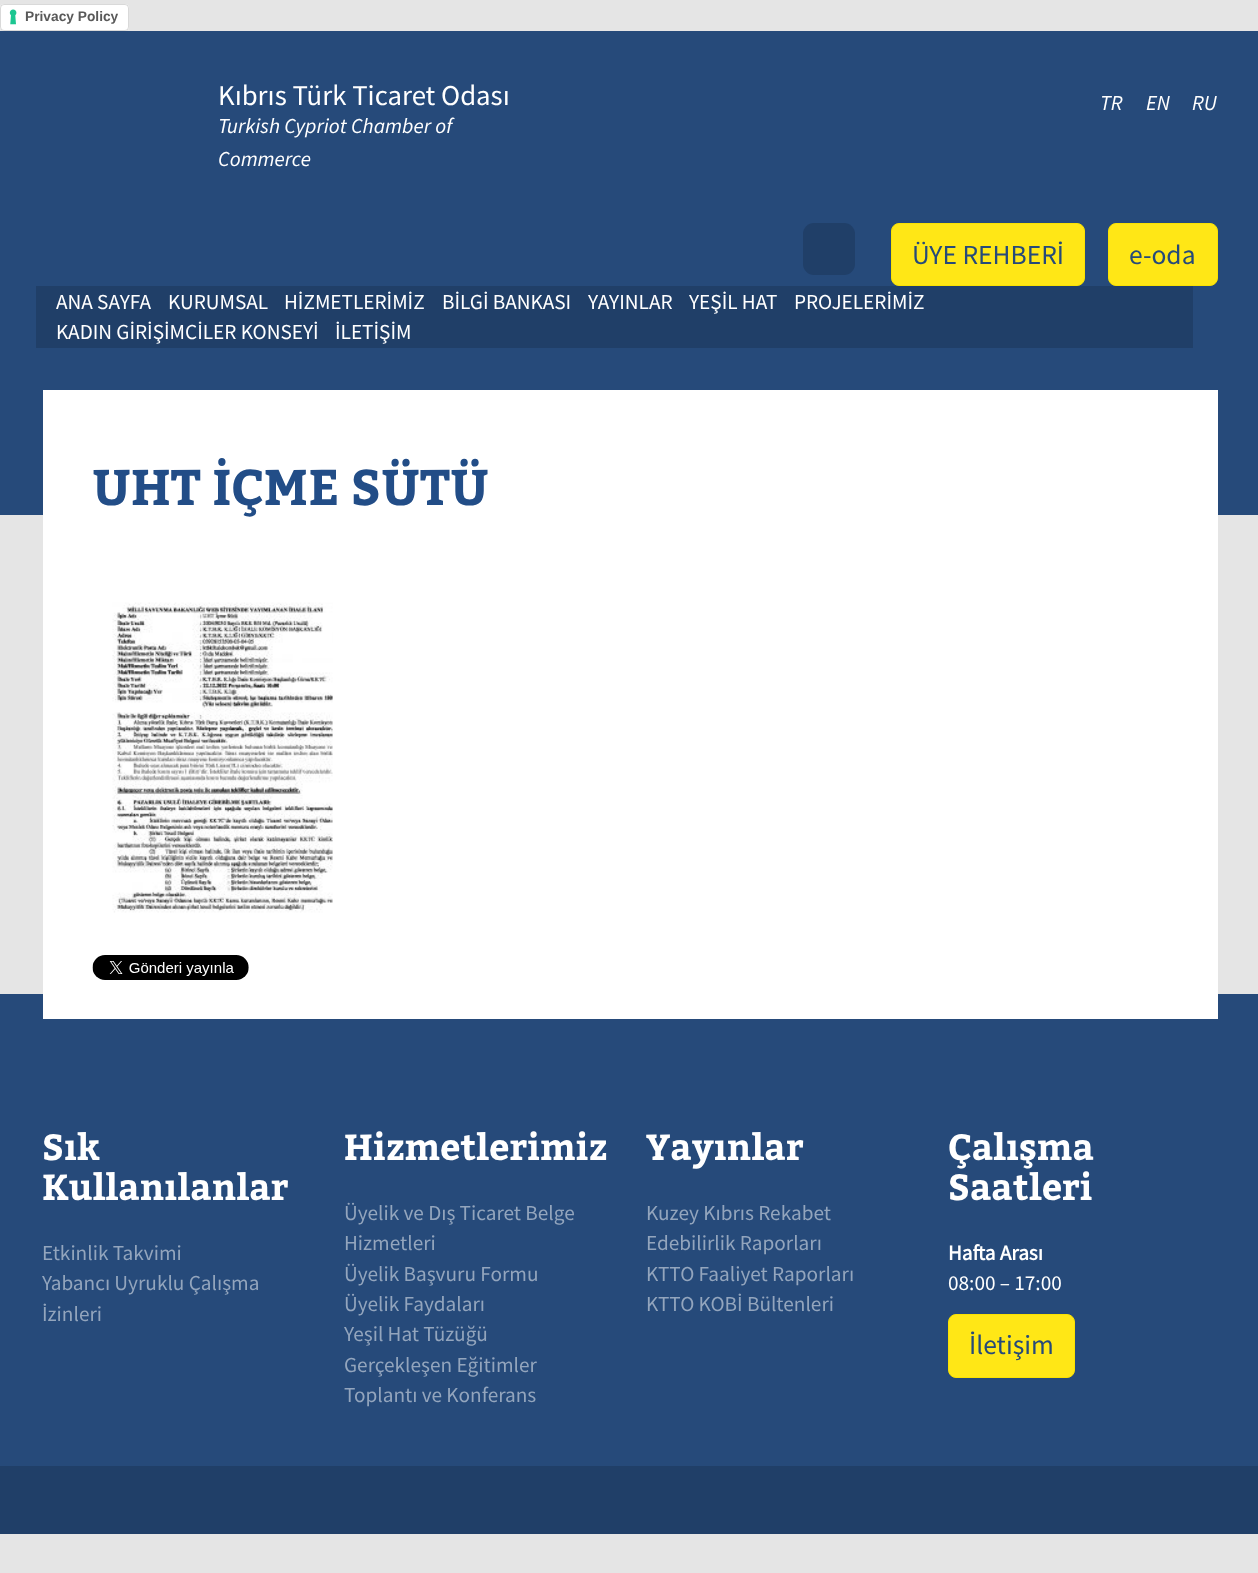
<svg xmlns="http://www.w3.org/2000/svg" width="1258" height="1573">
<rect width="100%" height="100%" fill="#e5e5e5"/>
<rect y="31" width="1258" height="484" fill="#264a7a"/>
<rect x="1" y="6" width="127" height="25" rx="2.5" fill="#00000026" filter="blur(0.5px)"/>
<rect y="4" width="129" height="27" rx="4" fill="#fff"/>
<image x="9" y="9" width="8" height="16" href="media/1.png"/>
<rect x="0.5" y="4.5" width="128" height="26" rx="3.5" fill="none" stroke="#00000026"/>
<text x="25" y="21" style="font-family:Liberation Sans;font-size:13.75px;font-weight:bold;fill:#595959">Privacy Policy</text>
<text x="218" y="105" style="font-family:Source Sans Pro;font-size:28.75px;fill:#fff">Kıbrıs Türk Ticaret Odası</text>
<text x="218" y="133" style="font-family:Source Sans Pro;font-size:21.25px;font-style:italic;fill:#fff">Turkish Cypriot Chamber of</text>
<text x="218" y="166" style="font-family:Source Sans Pro;font-size:21.25px;font-style:italic;fill:#fff">Commerce</text>
<text x="1100" y="110" style="font-family:Source Sans Pro;font-size:21.25px;font-style:italic;fill:#fff">TR</text>
<text x="1146" y="110" style="font-family:Source Sans Pro;font-size:21.25px;font-style:italic;fill:#fff">EN</text>
<text x="1192" y="110" style="font-family:Source Sans Pro;font-size:21.25px;font-style:italic;fill:#fff">RU</text>
<rect x="803" y="223" width="52" height="52" rx="11" fill="#203f68"/>
<rect x="891.5" y="223.5" width="193" height="62" rx="7.5" fill="#ffe716" stroke="#fbe200"/>
<text x="912" y="264" style="font-family:Source Sans Pro;font-size:27.5px;fill:#264a7a">ÜYE REHBERİ</text>
<rect x="1108.5" y="223.5" width="109" height="62" rx="7.5" fill="#ffe716" stroke="#fbe200"/>
<text x="1129" y="264" style="font-family:Source Sans Pro;font-size:27.5px;fill:#264a7a">e-oda</text>
<rect x="36" y="286" width="1157" height="62" fill="#203f68"/>
<text x="56" y="309" style="font-family:Source Sans Pro;font-size:21.25px;fill:#fff">ANA SAYFA</text>
<text x="168" y="309" style="font-family:Source Sans Pro;font-size:21.25px;fill:#fff">KURUMSAL</text>
<text x="284" y="309" style="font-family:Source Sans Pro;font-size:21.25px;fill:#fff">HİZMETLERİMİZ</text>
<text x="442" y="309" style="font-family:Source Sans Pro;font-size:21.25px;fill:#fff">BİLGİ BANKASI</text>
<text x="588" y="309" style="font-family:Source Sans Pro;font-size:21.25px;fill:#fff">YAYINLAR</text>
<text x="689" y="309" style="font-family:Source Sans Pro;font-size:21.25px;fill:#fff">YEŞİL HAT</text>
<text x="794" y="309" style="font-family:Source Sans Pro;font-size:21.25px;fill:#fff">PROJELERİMİZ</text>
<text x="56" y="339" style="font-family:Source Sans Pro;font-size:21.25px;fill:#fff">KADIN GİRİŞİMCİLER KONSEYİ</text>
<text x="335" y="339" style="font-family:Source Sans Pro;font-size:21.25px;fill:#fff">İLETİŞİM</text>
<rect y="994" width="1258" height="472" fill="#264a7a"/>
<rect x="43" y="390" width="1175" height="629" fill="#fff"/>
<text x="92" y="505" style="font-family:Bitter;font-size:50px;font-weight:bold;fill:#224d87">UHT İÇME SÜTÜ</text>
<image x="112" y="602" width="221" height="311" href="media/2.png"/>
<image x="92" y="955" width="157" height="25" href="media/3.png"/>
<text x="42" y="1160" style="font-family:Bitter;font-size:36.25px;font-weight:bold;fill:#fff">Sık</text>
<text x="42" y="1200" style="font-family:Bitter;font-size:36.25px;font-weight:bold;fill:#fff">Kullanılanlar</text>
<text x="42" y="1260" style="font-family:Source Sans Pro;font-size:21.25px;fill:#93a5bd">Etkinlik Takvimi</text>
<text x="42" y="1290" style="font-family:Source Sans Pro;font-size:21.25px;fill:#93a5bd">Yabancı Uyruklu Çalışma</text>
<text x="42" y="1321" style="font-family:Source Sans Pro;font-size:21.25px;fill:#93a5bd">İzinleri</text>
<text x="344" y="1160" style="font-family:Bitter;font-size:36.25px;font-weight:bold;fill:#fff">Hizmetlerimiz</text>
<text x="344" y="1220" style="font-family:Source Sans Pro;font-size:21.25px;fill:#93a5bd">Üyelik ve Dış Ticaret Belge</text>
<text x="344" y="1250" style="font-family:Source Sans Pro;font-size:21.25px;fill:#93a5bd">Hizmetleri</text>
<text x="344" y="1281" style="font-family:Source Sans Pro;font-size:21.25px;fill:#93a5bd">Üyelik Başvuru Formu</text>
<text x="344" y="1311" style="font-family:Source Sans Pro;font-size:21.25px;fill:#93a5bd">Üyelik Faydaları</text>
<text x="344" y="1341" style="font-family:Source Sans Pro;font-size:21.25px;fill:#93a5bd">Yeşil Hat Tüzüğü</text>
<text x="344" y="1372" style="font-family:Source Sans Pro;font-size:21.25px;fill:#93a5bd">Gerçekleşen Eğitimler</text>
<text x="344" y="1402" style="font-family:Source Sans Pro;font-size:21.25px;fill:#93a5bd">Toplantı ve Konferans</text>
<text x="646" y="1160" style="font-family:Bitter;font-size:36.25px;font-weight:bold;fill:#fff">Yayınlar</text>
<text x="646" y="1220" style="font-family:Source Sans Pro;font-size:21.25px;fill:#93a5bd">Kuzey Kıbrıs Rekabet</text>
<text x="646" y="1250" style="font-family:Source Sans Pro;font-size:21.25px;fill:#93a5bd">Edebilirlik Raporları</text>
<text x="646" y="1281" style="font-family:Source Sans Pro;font-size:21.25px;fill:#93a5bd">KTTO Faaliyet Raporları</text>
<text x="646" y="1311" style="font-family:Source Sans Pro;font-size:21.25px;fill:#93a5bd">KTTO KOBİ Bültenleri</text>
<text x="948" y="1160" style="font-family:Bitter;font-size:36.25px;font-weight:bold;fill:#fff">Çalışma</text>
<text x="948" y="1200" style="font-family:Bitter;font-size:36.25px;font-weight:bold;fill:#fff">Saatleri</text>
<text x="948" y="1260" style="font-family:Source Sans Pro;font-size:21.25px;font-weight:bold;fill:#fff">Hafta Arası</text>
<text x="948" y="1290" style="font-family:Source Sans Pro;font-size:21.25px;fill:#fff">08:00 – 17:00</text>
<rect x="948.5" y="1314.5" width="126" height="63" rx="7.5" fill="#ffe716" stroke="#fbe200"/>
<text x="969" y="1354" style="font-family:Source Sans Pro;font-size:27.5px;fill:#264a7a">İletişim</text>
<rect y="1466" width="1258" height="68" fill="#203f68"/>
</svg>
